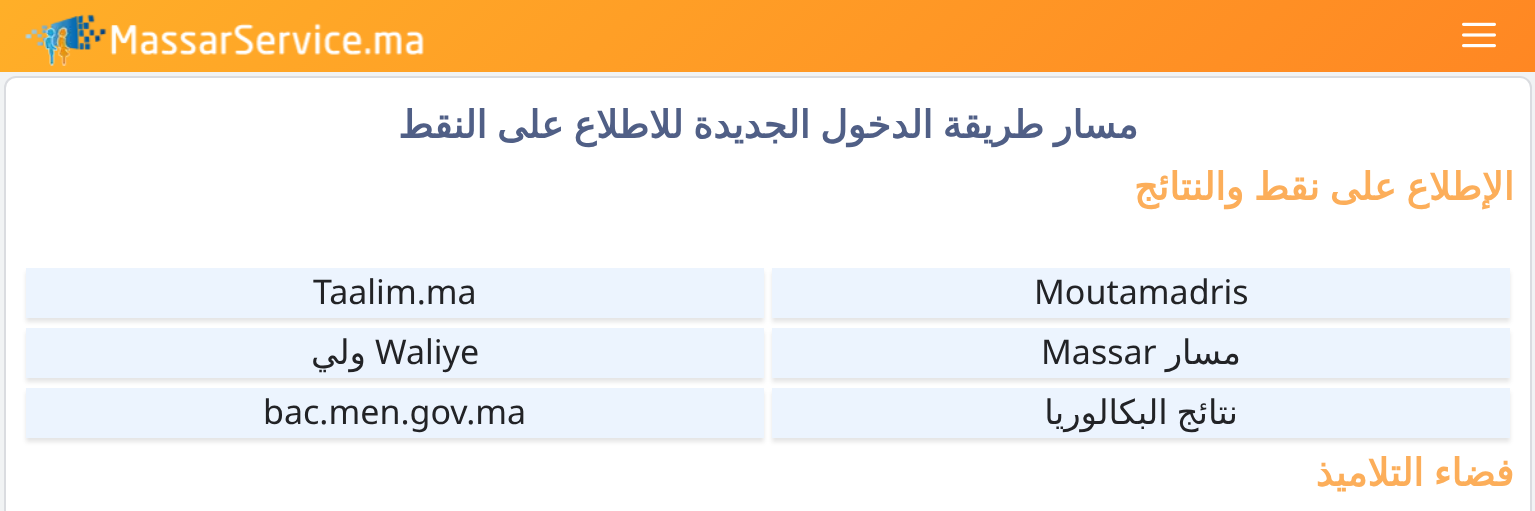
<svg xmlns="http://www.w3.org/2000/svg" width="1535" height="511">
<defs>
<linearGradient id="g1" gradientUnits="userSpaceOnUse" x1="381" y1="-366" x2="1155" y2="438"><stop offset="0" stop-color="#ffaf28"/><stop offset="1" stop-color="#ff8723"/></linearGradient>
</defs>
<rect width="100%" height="100%" fill="#f1f3f4"/>
<rect width="1535" height="72" fill="url(#g1)"/>
<image x="1462" y="22" width="34" height="26" href="media/1.png"/>
<image x="25" y="14" width="399" height="52" href="media/2.png"/>
<rect x="5" y="77" width="1526" height="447" rx="11" fill="#fff" stroke="#dadce0" stroke-width="2"/>
<text x="1138" y="138" word-spacing="-2.25" style="font-family:DejaVu Sans;font-size:38px;font-weight:bold;direction:rtl;fill:#505f86">مسار طريقة الدخول الجديدة للاطلاع على النقط</text>
<text x="1514" y="200" word-spacing="-2.25" style="font-family:DejaVu Sans;font-size:38px;font-weight:bold;direction:rtl;fill:#fcae5a">الإطلاع على نقط والنتائج</text>
<rect x="772" y="272" width="738" height="50" fill="#0000001a" filter="blur(2px)"/>
<rect x="772" y="268" width="738" height="50" fill="#ecf4fe"/>
<text x="1034" y="304" style="font-family:Noto Sans;font-size:34px;fill:#222326">Moutamadris</text>
<rect x="26" y="272" width="738" height="50" fill="#0000001a" filter="blur(2px)"/>
<rect x="26" y="268" width="738" height="50" fill="#ecf4fe"/>
<text x="313" y="304" style="font-family:Noto Sans;font-size:34px;fill:#222326">Taalim.ma</text>
<rect x="772" y="332" width="738" height="50" fill="#0000001a" filter="blur(2px)"/>
<rect x="772" y="328" width="738" height="50" fill="#ecf4fe"/>
<text x="1241" y="364" style="font-family:DejaVu Sans;font-size:34px;direction:rtl;fill:#222326">مسار</text>
<text x="1041" y="364" style="font-family:Noto Sans;font-size:34px;fill:#222326">Massar</text>
<rect x="26" y="332" width="738" height="50" fill="#0000001a" filter="blur(2px)"/>
<rect x="26" y="328" width="738" height="50" fill="#ecf4fe"/>
<text x="375" y="364" style="font-family:Noto Sans;font-size:34px;fill:#222326">Waliye</text>
<text x="366" y="364" style="font-family:DejaVu Sans;font-size:34px;direction:rtl;fill:#222326">ولي</text>
<rect x="772" y="392" width="738" height="50" fill="#0000001a" filter="blur(2px)"/>
<rect x="772" y="388" width="738" height="50" fill="#ecf4fe"/>
<text x="1238" y="424" word-spacing="-2" style="font-family:DejaVu Sans;font-size:34px;direction:rtl;fill:#222326">نتائج البكالوريا</text>
<rect x="26" y="392" width="738" height="50" fill="#0000001a" filter="blur(2px)"/>
<rect x="26" y="388" width="738" height="50" fill="#ecf4fe"/>
<text x="263" y="424" style="font-family:Noto Sans;font-size:34px;fill:#222326">bac.men.gov.ma</text>
<text x="1514" y="486" word-spacing="-2.25" style="font-family:DejaVu Sans;font-size:38px;font-weight:bold;direction:rtl;fill:#fcae5a">فضاء التلاميذ</text>
</svg>
